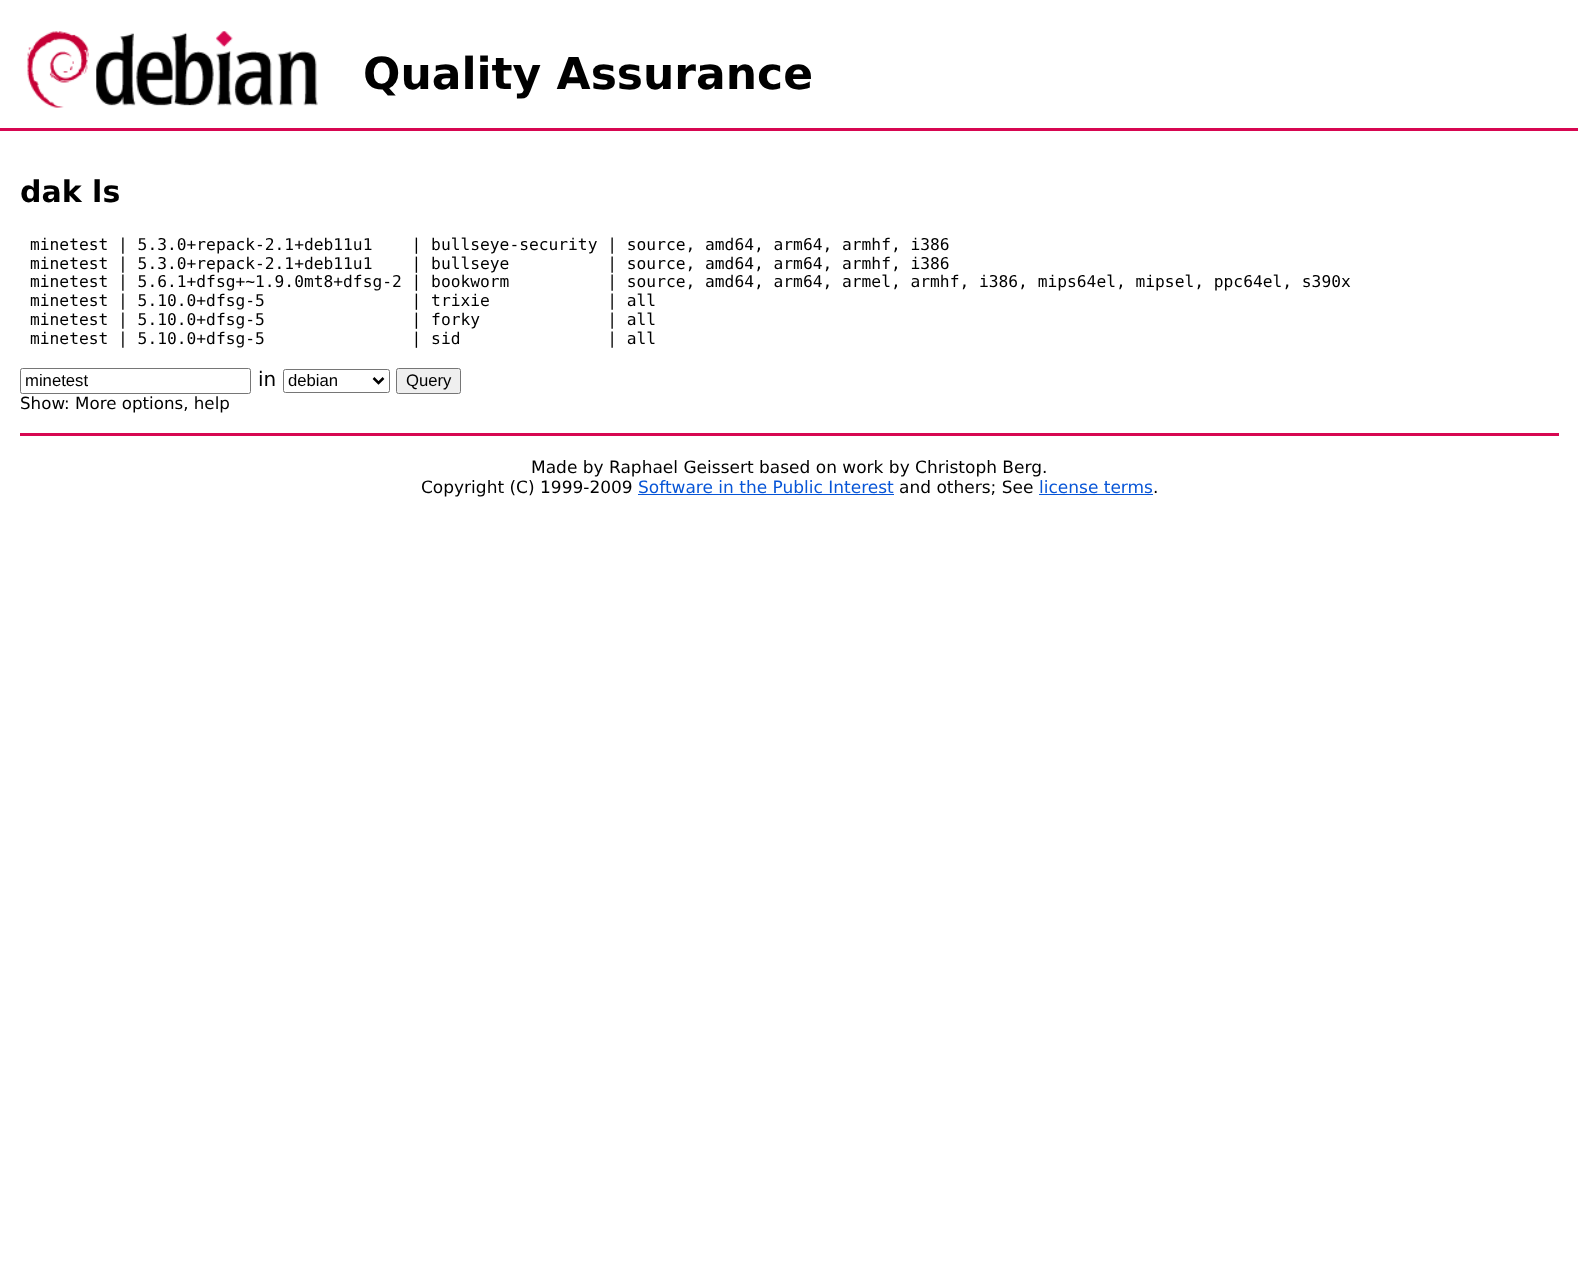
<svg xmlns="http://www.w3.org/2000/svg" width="1578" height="1268">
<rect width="100%" height="100%" fill="#fff"/>
<image x="27" y="31" width="291" height="77" href="media/1.png"/>
<text x="363" y="89" style="font-family:DejaVu Sans;font-size:44px;font-weight:bold;fill:#000">Quality Assurance</text>
<rect y="128" width="1578" height="3" fill="#d70751"/>
<text x="20" y="202" style="font-family:DejaVu Sans;font-size:30px;font-weight:bold;fill:#000">dak ls</text>
<text x="30" y="250" style="font-family:DejaVu Sans Mono;font-size:16.25px;fill:#000" xml:space="preserve">minetest | 5.3.0+repack-2.1+deb11u1    | bullseye-security | source, amd64, arm64, armhf, i386</text>
<text x="30" y="269" style="font-family:DejaVu Sans Mono;font-size:16.25px;fill:#000" xml:space="preserve">minetest | 5.3.0+repack-2.1+deb11u1    | bullseye          | source, amd64, arm64, armhf, i386</text>
<text x="30" y="287" style="font-family:DejaVu Sans Mono;font-size:16.25px;fill:#000" xml:space="preserve">minetest | 5.6.1+dfsg+~1.9.0mt8+dfsg-2 | bookworm          | source, amd64, arm64, armel, armhf, i386, mips64el, mipsel, ppc64el, s390x</text>
<text x="30" y="306" style="font-family:DejaVu Sans Mono;font-size:16.25px;fill:#000" xml:space="preserve">minetest | 5.10.0+dfsg-5               | trixie            | all</text>
<text x="30" y="325" style="font-family:DejaVu Sans Mono;font-size:16.25px;fill:#000" xml:space="preserve">minetest | 5.10.0+dfsg-5               | forky             | all</text>
<text x="30" y="344" style="font-family:DejaVu Sans Mono;font-size:16.25px;fill:#000" xml:space="preserve">minetest | 5.10.0+dfsg-5               | sid               | all</text>
<rect x="20.5" y="368.5" width="230" height="25" rx="2" fill="none" stroke="#767676"/>
<text x="25" y="386" style="font-family:Liberation Sans;font-size:16.7px;fill:#000">minetest</text>
<text x="258" y="386" style="font-family:DejaVu Sans;font-size:20px;fill:#000">in</text>
<rect x="283.5" y="369.5" width="106" height="23" rx="2" fill="none" stroke="#767676"/>
<path d="M373.5 378l5 5l5-5" fill="none" stroke="#000" stroke-width="2.5"/>
<text x="288" y="386" style="font-family:Liberation Sans;font-size:16.7px;fill:#000">debian</text>
<rect x="396.5" y="368.5" width="64" height="25" rx="2" fill="#efefef" stroke="#767676"/>
<text x="406" y="386" style="font-family:Liberation Sans;font-size:16.7px;fill:#000">Query</text>
<text x="20" y="409" style="font-family:DejaVu Sans;font-size:16.7px;fill:#000">Show: More options, help</text>
<rect x="20" y="433" width="1539" height="3" fill="#d70751"/>
<text x="531" y="473" style="font-family:DejaVu Sans;font-size:17px;fill:#000">Made by Raphael Geissert based on work by Christoph Berg.</text>
<text x="421" y="493" style="font-family:DejaVu Sans;font-size:17px;fill:#000">Copyright (C) 1999-2009</text>
<text x="638" y="493" style="font-family:DejaVu Sans;font-size:17px;fill:#0755d7">Software in the Public Interest</text>
<rect x="638" y="494" width="256" height="1" fill="#0755d7"/>
<text x="899" y="493" style="font-family:DejaVu Sans;font-size:17px;fill:#000">and others; See</text>
<text x="1039" y="493" style="font-family:DejaVu Sans;font-size:17px;fill:#0755d7">license terms</text>
<rect x="1039" y="494" width="114" height="1" fill="#0755d7"/>
<text x="1153" y="493" style="font-family:DejaVu Sans;font-size:17px;fill:#000">.</text>
</svg>
